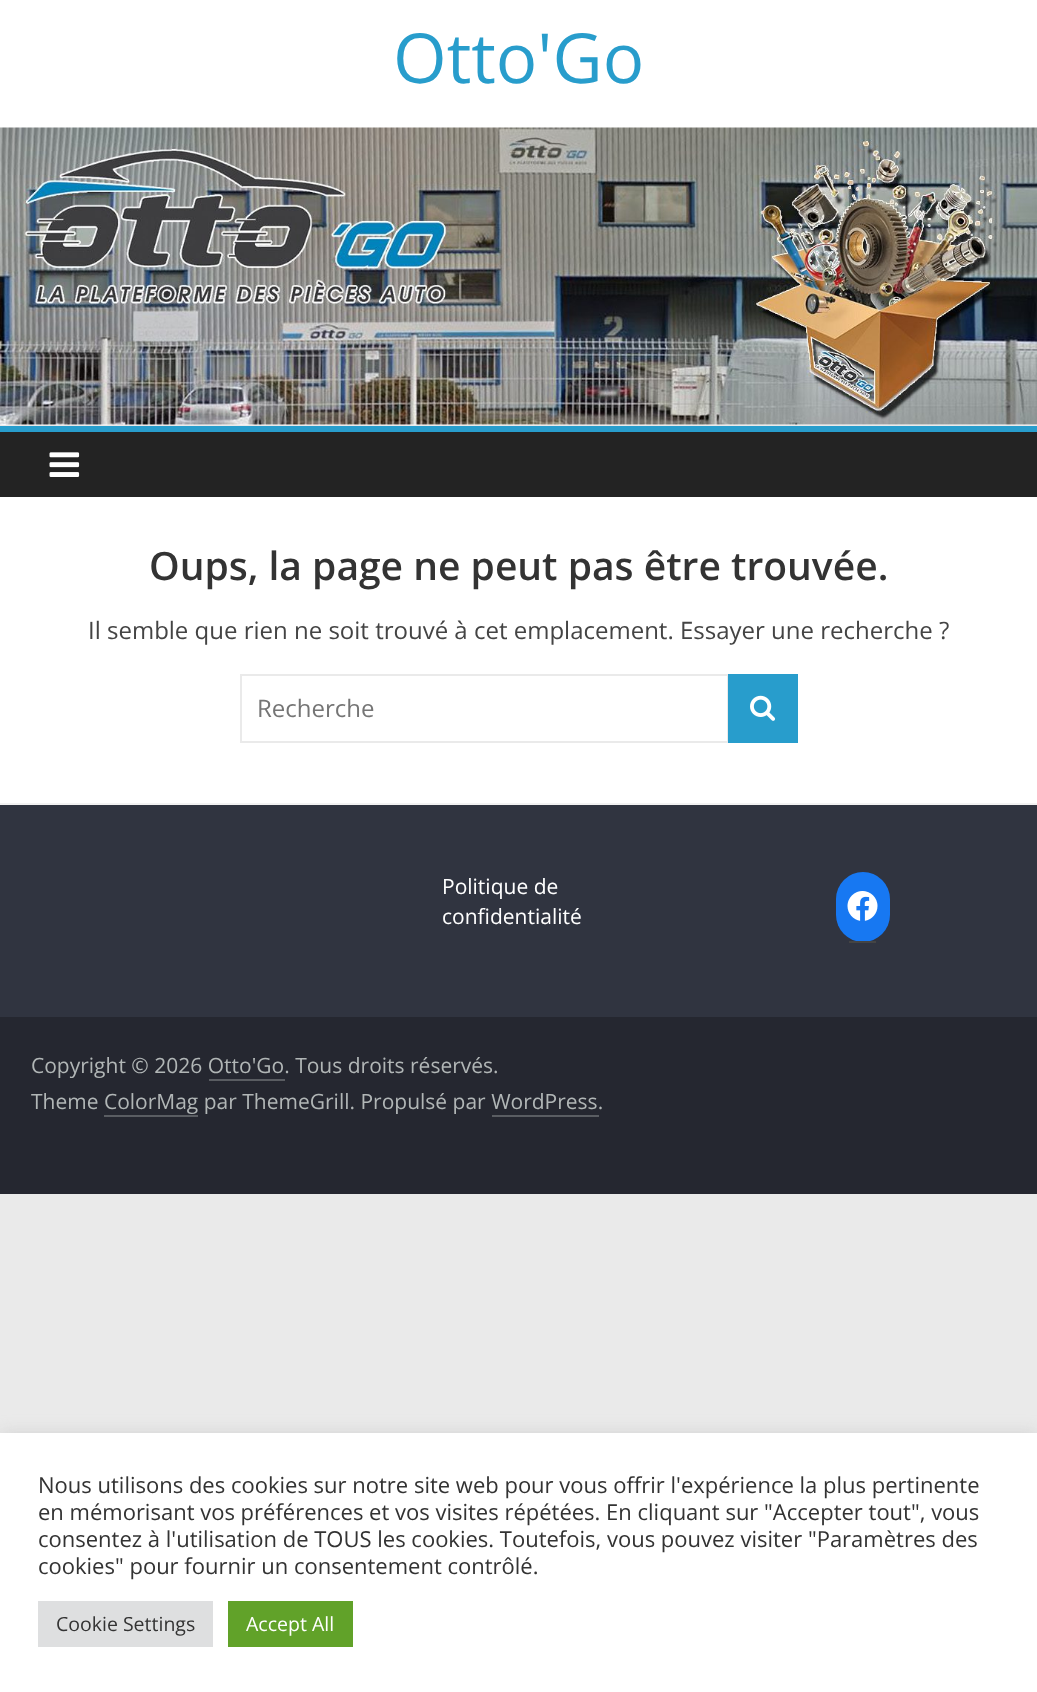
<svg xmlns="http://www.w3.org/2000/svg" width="1037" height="1692">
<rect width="100%" height="100%" fill="#eaeaea"/>
<rect width="1037" height="425" fill="#fff"/>
<text x="393" y="83" style="font-family:Open Sans;font-size:69px;fill:#289dcc">Otto'Go</text>
<image x="0" y="127" width="1037" height="298" href="media/1.png"/>
<rect y="432" width="1037" height="65" fill="#232323"/>
<rect y="426" width="1037" height="6" fill="#289dcc"/>
<image x="49" y="452" width="31" height="25" href="media/2.png"/>
<rect y="497" width="1037" height="306" fill="#fff"/>
<text x="149" y="580" style="font-family:Open Sans;font-size:39px;font-weight:600;fill:#333">Oups, la page ne peut pas être trouvée.</text>
<text x="88" y="639" style="font-family:Open Sans;font-size:24px;fill:#444">Il semble que rien ne soit trouvé à cet emplacement. Essayer une recherche ?</text>
<rect x="241" y="675" width="487" height="67" fill="none" stroke="#eaeaea" stroke-width="2"/>
<text x="257" y="717" style="font-family:Open Sans;font-size:24px;fill:#757575">Recherche</text>
<rect x="728" y="674" width="70" height="69" fill="#289dcc"/>
<image x="750" y="695" width="25" height="26" href="media/3.png"/>
<rect y="805" width="1037" height="212" fill="#303440"/>
<rect y="803" width="1037" height="2" fill="#f2f2f2"/>
<text x="442" y="894" style="font-family:Open Sans;font-size:21px;fill:#fff">Politique de</text>
<text x="442" y="924" style="font-family:Open Sans;font-size:21px;fill:#fff">confidentialité</text>
<rect x="836" y="872" width="54" height="70" rx="27" fill="#1778f2"/>
<rect x="849" y="941" width="27" height="2" fill="#444"/>
<image x="847" y="891" width="31" height="30" href="media/4.png"/>
<rect y="1017" width="1037" height="177" fill="#252730"/>
<text x="31" y="1073" style="font-family:Open Sans;font-size:21px;fill:#b1b6b6">Copyright © 2026 Otto'Go. Tous droits réservés.</text>
<rect x="209" y="1079" width="76" height="2" fill="#5a5d62"/>
<text x="31" y="1109" style="font-family:Open Sans;font-size:21px;fill:#b1b6b6">Theme ColorMag par ThemeGrill. Propulsé par WordPress.</text>
<rect x="104" y="1115" width="94" height="2" fill="#5a5d62"/>
<rect x="492" y="1115" width="107" height="2" fill="#5a5d62"/>
<rect y="1431" width="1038" height="260" fill="#acabab4d" filter="blur(7.5px)"/>
<rect y="1433" width="1037" height="259" fill="#fff"/>
<text x="38" y="1493" style="font-family:Open Sans;font-size:22px;fill:#333">Nous utilisons des cookies sur notre site web pour vous offrir l'expérience la plus pertinente</text>
<text x="38" y="1520" style="font-family:Open Sans;font-size:22px;fill:#333">en mémorisant vos préférences et vos visites répétées. En cliquant sur "Accepter tout", vous</text>
<text x="38" y="1547" style="font-family:Open Sans;font-size:22px;fill:#333">consentez à l'utilisation de TOUS les cookies. Toutefois, vous pouvez visiter "Paramètres des</text>
<text x="38" y="1574" style="font-family:Open Sans;font-size:22px;fill:#333">cookies" pour fournir un consentement contrôlé.</text>
<rect x="38" y="1601" width="175" height="46" fill="#dedfe0"/>
<text x="56" y="1631" style="font-family:Open Sans;font-size:19.5px;fill:#333">Cookie Settings</text>
<rect x="228" y="1601" width="125" height="46" fill="#61a229"/>
<text x="246" y="1631" style="font-family:Open Sans;font-size:19.5px;fill:#fff">Accept All</text>
</svg>
